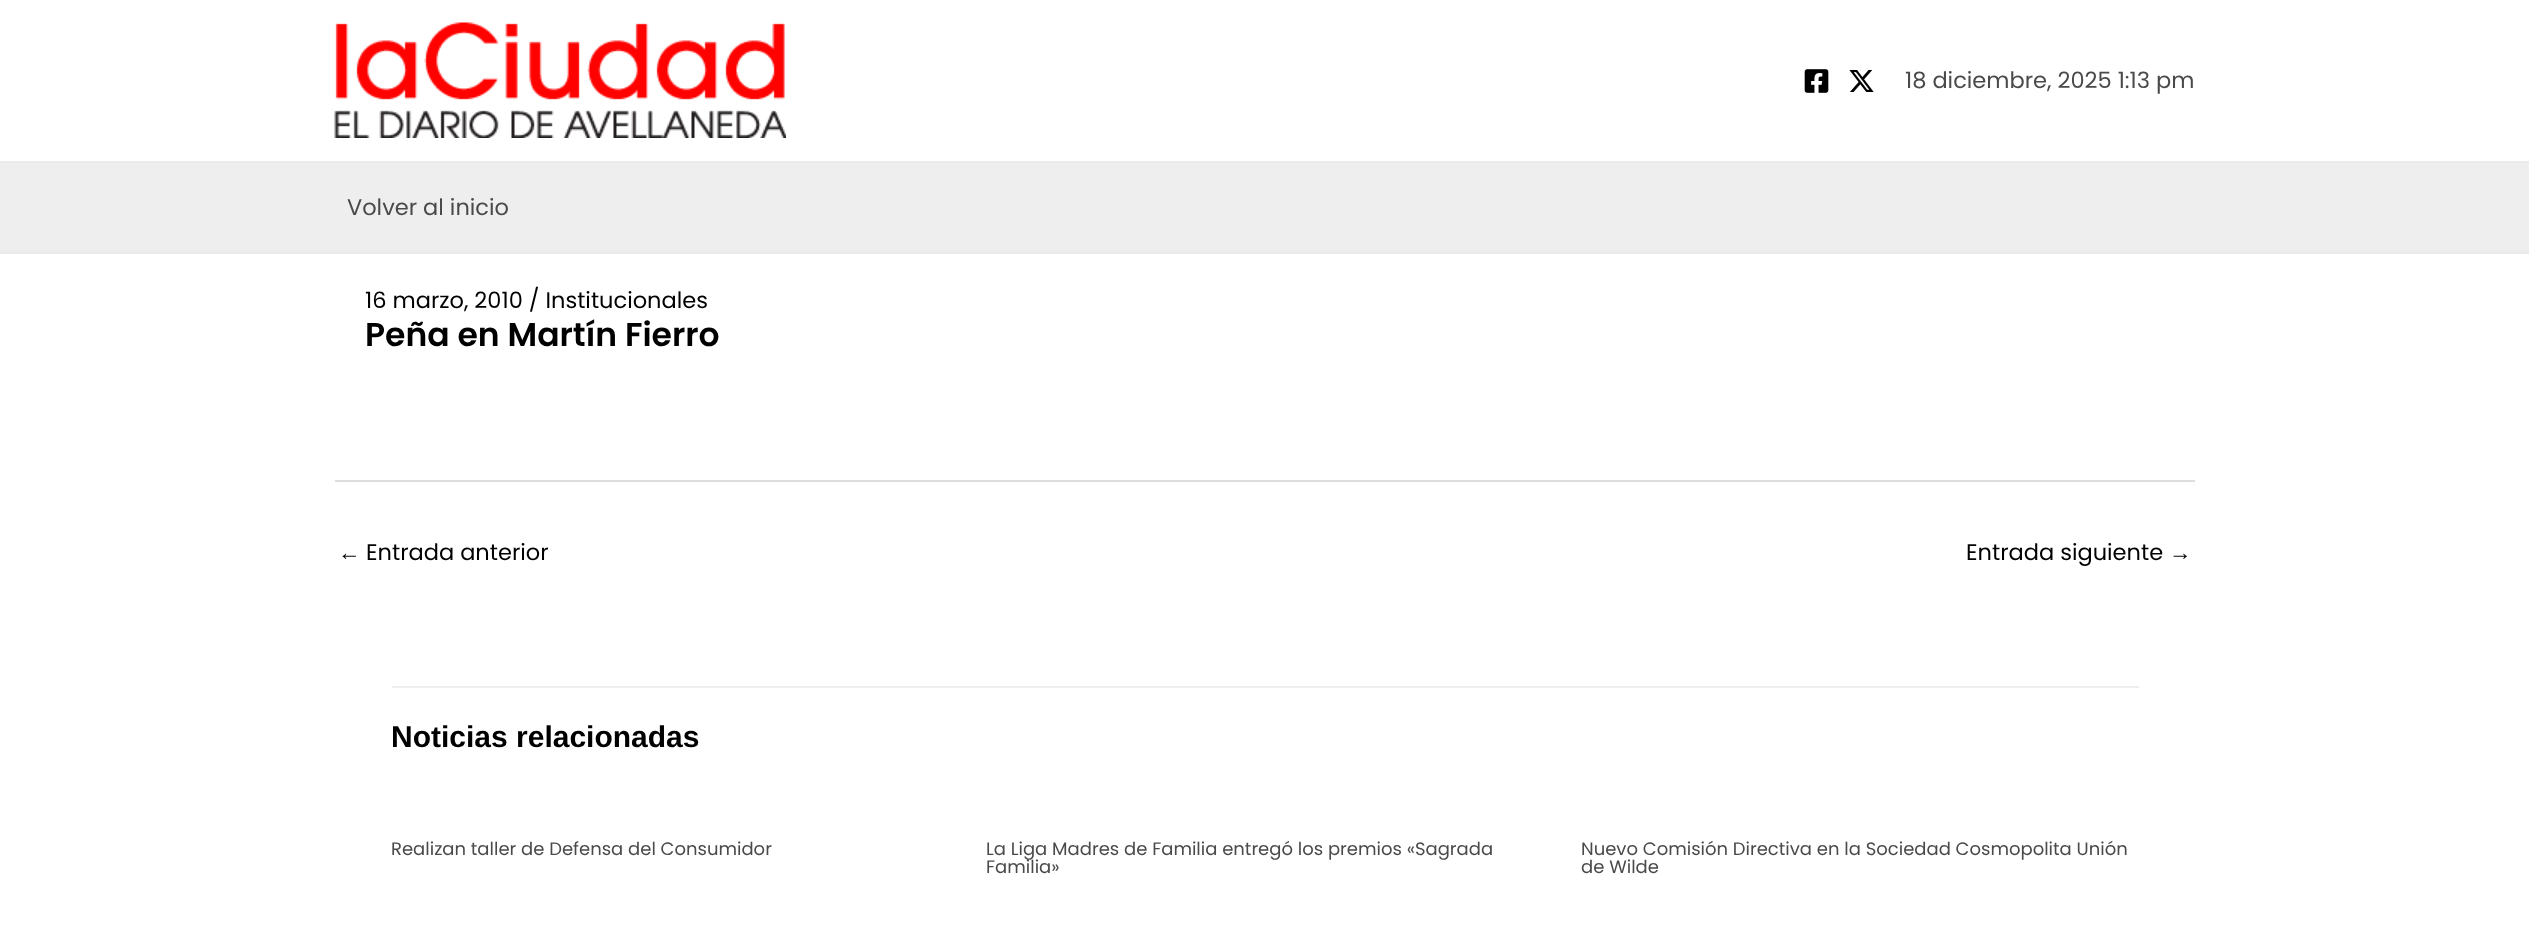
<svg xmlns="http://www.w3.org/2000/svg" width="2529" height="950">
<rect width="100%" height="100%" fill="#fff"/>
<rect y="161" width="2529" height="2" fill="#eaeaea"/>
<image x="334" y="22" width="452" height="116" href="media/1.png"/>
<image x="1804" y="69" width="25" height="24" href="media/2.png"/>
<image x="1849" y="70" width="25" height="22" href="media/3.png"/>
<text x="1905" y="88" style="font-family:Poppins;font-size:22.5px;fill:#4a4a4a">18 diciembre, 2025 1:13 pm</text>
<rect y="163" width="2529" height="89" fill="#eee"/>
<rect y="252" width="2529" height="2" fill="#eaeaea"/>
<text x="347" y="215" style="font-family:Poppins;font-size:22.5px;fill:#4a4a4a">Volver al inicio</text>
<text x="365" y="308" style="font-family:Poppins;font-size:22.5px;fill:#000">16 marzo, 2010 / Institucionales</text>
<text x="365" y="346" style="font-family:Poppins;font-size:33px;font-weight:600;fill:#000">Peña en Martín Fierro</text>
<rect x="335" y="480" width="1860" height="2" fill="#ddd"/>
<text x="338" y="560" style="font-family:Liberation Sans;font-size:22.5px;fill:#000">←</text>
<text x="366" y="560" style="font-family:Poppins;font-size:22.5px;fill:#000">Entrada anterior</text>
<text x="1966" y="560" style="font-family:Poppins;font-size:22.5px;fill:#000">Entrada siguiente</text>
<text x="2169" y="560" style="font-family:Liberation Sans;font-size:22.5px;fill:#000">→</text>
<rect x="392" y="686" width="1747" height="2" fill="#eee"/>
<text x="391" y="747" style="font-family:Liberation Sans;font-size:30px;font-weight:bold;fill:#000">Noticias relacionadas</text>
<text x="391" y="855" style="font-family:Poppins;font-size:18px;fill:#4a4a4a">Realizan taller de Defensa del Consumidor</text>
<text x="986" y="855" style="font-family:Poppins;font-size:18px;fill:#4a4a4a">La Liga Madres de Familia entregó los premios «Sagrada</text>
<text x="986" y="873" style="font-family:Poppins;font-size:18px;fill:#4a4a4a">Familia»</text>
<text x="1581" y="855" style="font-family:Poppins;font-size:18px;fill:#4a4a4a">Nuevo Comisión Directiva en la Sociedad Cosmopolita Unión</text>
<text x="1581" y="873" style="font-family:Poppins;font-size:18px;fill:#4a4a4a">de Wilde</text>
</svg>
